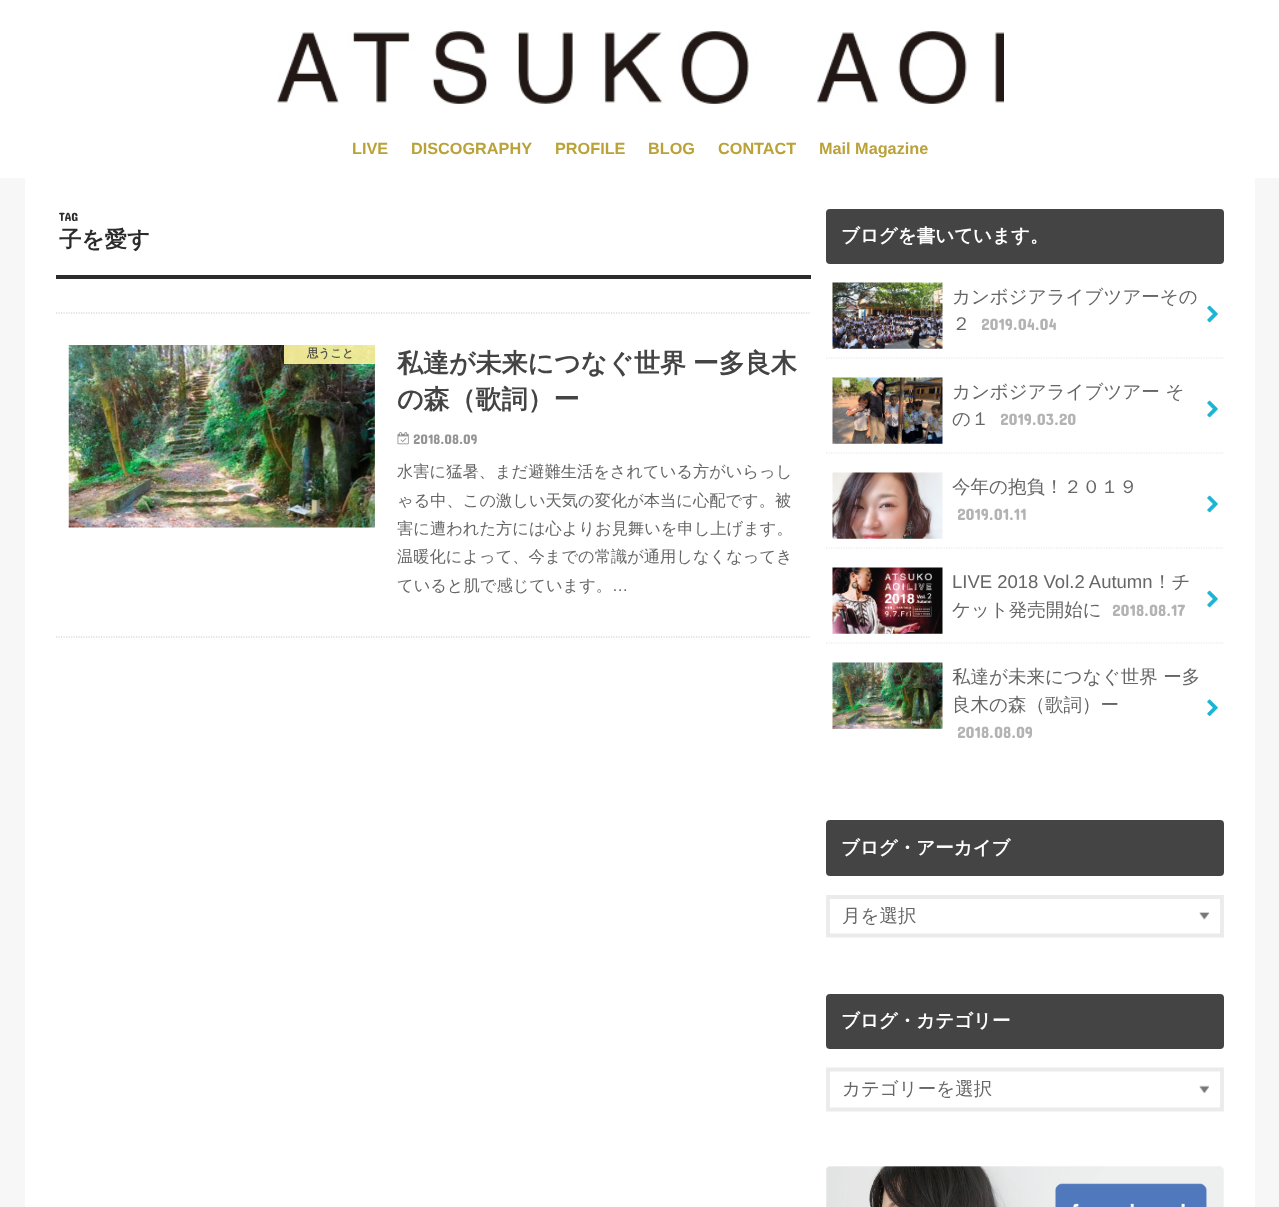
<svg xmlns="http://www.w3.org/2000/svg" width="1279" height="1207">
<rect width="100%" height="100%" fill="#f7f7f7"/>
<rect x="25" y="178" width="1230" height="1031" fill="#ddd" filter="blur(0.5px)"/>
<rect width="1279" height="178" fill="#fff"/>
<image x="277" y="31" width="727" height="73" href="media/1.png"/>
<text x="352" y="154" style="font-family:Liberation Sans;font-size:16.25px;font-weight:bold;fill:#baa239">LIVE</text>
<text x="411" y="154" style="font-family:Liberation Sans;font-size:16.25px;font-weight:bold;fill:#baa239">DISCOGRAPHY</text>
<text x="555" y="154" style="font-family:Liberation Sans;font-size:16.25px;font-weight:bold;fill:#baa239">PROFILE</text>
<text x="648" y="154" style="font-family:Liberation Sans;font-size:16.25px;font-weight:bold;fill:#baa239">BLOG</text>
<text x="718" y="154" style="font-family:Liberation Sans;font-size:16.25px;font-weight:bold;fill:#baa239">CONTACT</text>
<text x="819" y="154" style="font-family:Liberation Sans;font-size:16.25px;font-weight:bold;fill:#baa239">Mail Magazine</text>
<rect x="25" y="178" width="1230" height="1029" fill="#fff"/>
<rect x="56" y="275" width="755" height="4" fill="#2b2b2b"/>
<text x="59" y="221" style="font-family:Concert One;font-size:12px;fill:#2b2b2b">TAG</text>
<text x="59" y="247" style="font-family:WenQuanYi Zen Hei;font-size:22.5px;font-weight:bold;fill:#2b2b2b">子を愛す</text>
<path d="M56 313h755" fill="none" stroke="#ccc" stroke-width="1.2" stroke-dasharray="1.25 1.25"/>
<path d="M56 637h755" fill="none" stroke="#ccc" stroke-width="1.2" stroke-dasharray="1.25 1.25"/>
<image x="68" y="345" width="307" height="183" href="media/2.png"/>
<rect x="284" y="345" width="91" height="19" fill="#fff7a0e6"/>
<text x="307" y="357" style="font-family:WenQuanYi Zen Hei;font-size:11.5px;font-weight:bold;fill:#55544c">思うこと</text>
<text x="397" y="372" word-spacing="-1" style="font-family:WenQuanYi Zen Hei;font-size:26px;font-weight:bold;fill:#444">私達が未来につなぐ世界 ー多良木</text>
<text x="397" y="408" style="font-family:WenQuanYi Zen Hei;font-size:26px;font-weight:bold;fill:#444">の森（歌詞）ー</text>
<image x="397" y="432" width="12" height="13" href="media/3.png"/>
<text x="413" y="444" style="font-family:Concert One;font-size:14px;fill:#949494">2018.08.09</text>
<text x="397" y="477" style="font-family:WenQuanYi Zen Hei;font-size:16.25px;font-weight:500;fill:#666">水害に猛暑、まだ避難生活をされている方がいらっし</text>
<text x="397" y="506" style="font-family:WenQuanYi Zen Hei;font-size:16.25px;font-weight:500;fill:#666">ゃる中、この激しい天気の変化が本当に心配です。被</text>
<text x="397" y="534" style="font-family:WenQuanYi Zen Hei;font-size:16.25px;font-weight:500;fill:#666">害に遭われた方には心よりお見舞いを申し上げます。</text>
<text x="397" y="562" style="font-family:WenQuanYi Zen Hei;font-size:16.25px;font-weight:500;fill:#666">温暖化によって、今までの常識が通用しなくなってき</text>
<text x="397" y="591" style="font-family:WenQuanYi Zen Hei;font-size:16.25px;font-weight:500;fill:#666">ていると肌で感じています。</text>
<text x="612" y="591" style="font-family:Liberation Sans;font-size:16.25px;fill:#666">…</text>
<rect x="826" y="209" width="398" height="55" rx="4" fill="#444"/>
<text x="841" y="242" style="font-family:WenQuanYi Zen Hei;font-size:18.5px;font-weight:bold;fill:#fff">ブログを書いています。</text>
<path d="M826 358h398" fill="none" stroke="#e5e5e5" stroke-width="1.2" stroke-dasharray="1.25 1.25"/>
<image x="832" y="282" width="111" height="67" href="media/4.png"/>
<text x="952" y="303" style="font-family:WenQuanYi Zen Hei;font-size:18.5px;font-weight:500;fill:#666">カンボジアライブツアーその</text>
<text x="952" y="330" style="font-family:WenQuanYi Zen Hei;font-size:18.5px;font-weight:500;fill:#666">２</text>
<text x="981" y="330" style="font-family:Concert One;font-size:16.5px;fill:#b3b3b3">2019.04.04</text>
<image x="1207" y="305" width="11" height="18" href="media/5.png"/>
<path d="M826 453h398" fill="none" stroke="#e5e5e5" stroke-width="1.2" stroke-dasharray="1.25 1.25"/>
<image x="832" y="377" width="111" height="67" href="media/6.png"/>
<text x="952" y="398" style="font-family:WenQuanYi Zen Hei;font-size:18.5px;font-weight:500;fill:#666">カンボジアライブツアー そ</text>
<image x="1207" y="400" width="11" height="18" href="media/5.png"/>
<text x="952" y="425" style="font-family:WenQuanYi Zen Hei;font-size:18.5px;font-weight:500;fill:#666">の１</text>
<text x="1000" y="425" style="font-family:Concert One;font-size:16.5px;fill:#b3b3b3">2019.03.20</text>
<path d="M826 548h398" fill="none" stroke="#e5e5e5" stroke-width="1.2" stroke-dasharray="1.25 1.25"/>
<image x="832" y="472" width="111" height="67" href="media/7.png"/>
<text x="952" y="493" style="font-family:WenQuanYi Zen Hei;font-size:18.5px;font-weight:500;fill:#666">今年の抱負！２０１９</text>
<image x="1207" y="495" width="11" height="18" href="media/5.png"/>
<text x="957" y="520" style="font-family:Concert One;font-size:16.5px;fill:#b3b3b3">2019.01.11</text>
<path d="M826 643h398" fill="none" stroke="#e5e5e5" stroke-width="1.2" stroke-dasharray="1.25 1.25"/>
<image x="832" y="567" width="111" height="67" href="media/8.png"/>
<text x="952" y="588" style="font-family:Liberation Sans;font-size:18.5px;fill:#666">LIVE 2018 Vol.2 Autumn</text>
<text x="1153" y="588" style="font-family:WenQuanYi Zen Hei;font-size:18.5px;font-weight:500;fill:#666">！チ</text>
<text x="952" y="616" style="font-family:WenQuanYi Zen Hei;font-size:18.5px;font-weight:500;fill:#666">ケット発売開始に</text>
<text x="1112" y="616" style="font-family:Concert One;font-size:16.5px;fill:#b3b3b3">2018.08.17</text>
<image x="1207" y="590" width="11" height="18" href="media/5.png"/>
<image x="832" y="662" width="111" height="67" href="media/9.png"/>
<text x="952" y="683" style="font-family:WenQuanYi Zen Hei;font-size:18.5px;font-weight:500;fill:#666">私達が未来につなぐ世界 ー多</text>
<text x="952" y="711" style="font-family:WenQuanYi Zen Hei;font-size:18.5px;font-weight:500;fill:#666">良木の森（歌詞）ー</text>
<image x="1207" y="699" width="11" height="17" href="media/10.png"/>
<text x="957" y="738" style="font-family:Concert One;font-size:16.5px;fill:#b3b3b3">2018.08.09</text>
<rect x="826" y="820" width="398" height="56" rx="4" fill="#444"/>
<text x="841" y="854" style="font-family:WenQuanYi Zen Hei;font-size:18.5px;font-weight:bold;fill:#fff">ブログ・アーカイブ</text>
<image x="1199" y="912" width="11" height="8" href="media/11.png"/>
<path d="M828 897h394v38.5h-394z" fill="none" stroke="#ebebeb" stroke-width="3.8"/>
<text x="842" y="922" style="font-family:WenQuanYi Zen Hei;font-size:18.5px;font-weight:500;fill:#666">月を選択</text>
<rect x="826" y="994" width="398" height="55" rx="4" fill="#444"/>
<text x="841" y="1027" style="font-family:WenQuanYi Zen Hei;font-size:18.5px;font-weight:bold;fill:#fff">ブログ・カテゴリー</text>
<image x="1199" y="1085" width="11" height="9" href="media/12.png"/>
<path d="M828 1069.5h394v40h-394z" fill="none" stroke="#ebebeb" stroke-width="3.8"/>
<text x="842" y="1095" style="font-family:WenQuanYi Zen Hei;font-size:18.5px;font-weight:500;fill:#666">カテゴリーを選択</text>
<image x="826" y="1166" width="398" height="41" href="media/13.png"/>
</svg>
